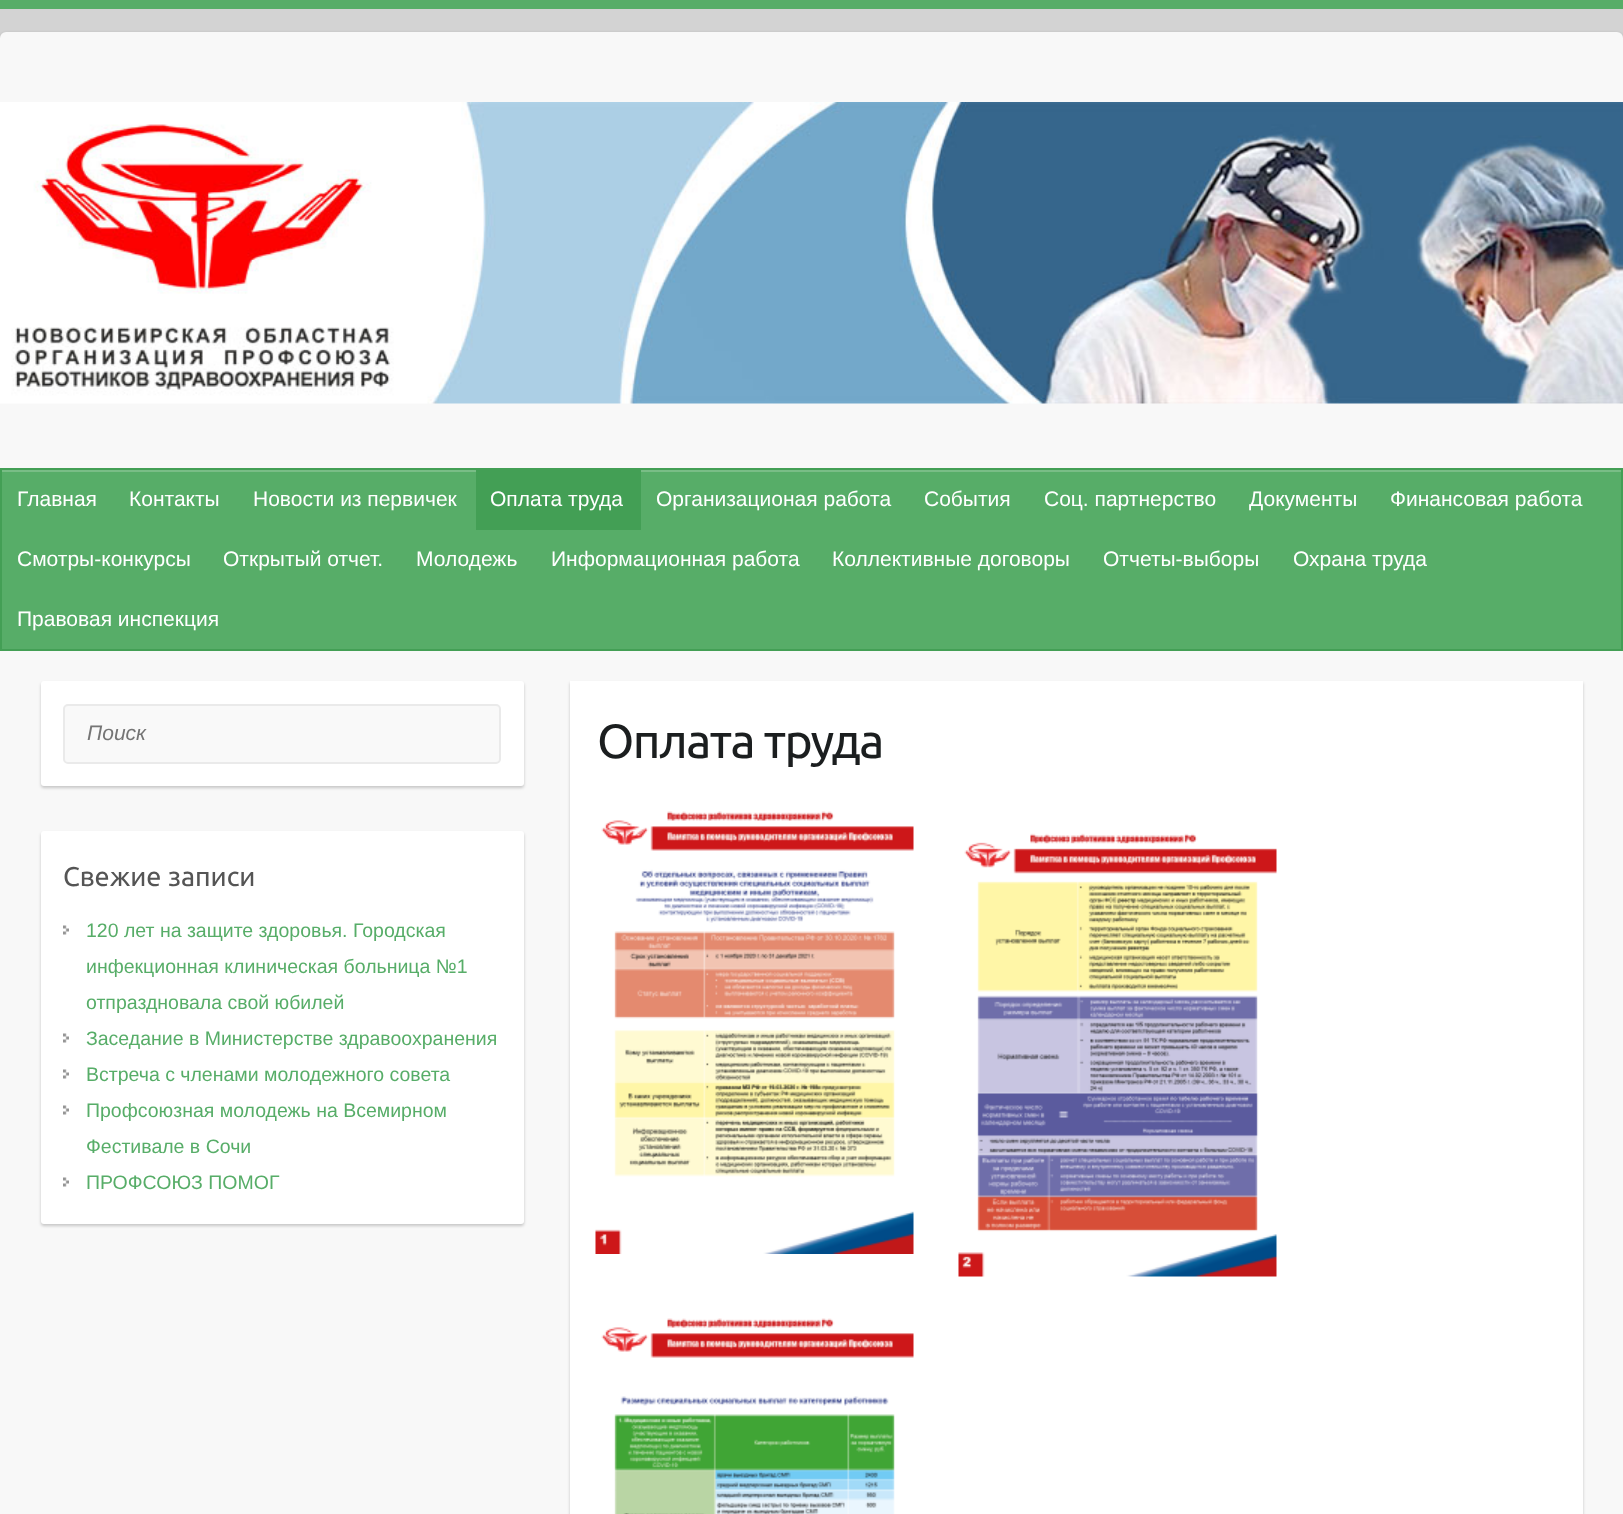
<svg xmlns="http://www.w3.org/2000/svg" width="1623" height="1514">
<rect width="100%" height="100%" fill="#d3d3d3"/>
<rect width="1623" height="9" fill="#57ad68"/>
<rect y="33" width="1623" height="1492" rx="6" fill="#00000033" filter="blur(1.5px)"/>
<rect y="32" width="1623" height="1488" rx="6" fill="#f8f8f8"/>
<image x="0" y="102" width="1623" height="302" href="media/1.png"/>
<rect x="2" y="472" width="1619" height="177" fill="#57ad68"/>
<rect x="2" y="470" width="1620" height="2" fill="#79bd86"/>
<rect x="1" y="469" width="1621" height="181" fill="none" stroke="#439f55" stroke-width="2"/>
<text x="17" y="506" style="font-family:Liberation Sans;font-size:21px;fill:#fff">Главная</text>
<text x="129" y="506" style="font-family:Liberation Sans;font-size:21px;fill:#fff">Контакты</text>
<text x="253" y="506" style="font-family:Liberation Sans;font-size:21px;fill:#fff">Новости из первичек</text>
<rect x="476" y="470" width="165" height="60" fill="#439f55"/>
<text x="490" y="506" style="font-family:Liberation Sans;font-size:21px;fill:#fff">Оплата труда</text>
<text x="656" y="506" style="font-family:Liberation Sans;font-size:21px;fill:#fff">Организационая работа</text>
<text x="924" y="506" style="font-family:Liberation Sans;font-size:21px;fill:#fff">События</text>
<text x="1044" y="506" style="font-family:Liberation Sans;font-size:21px;fill:#fff">Соц. партнерство</text>
<text x="1249" y="506" style="font-family:Liberation Sans;font-size:21px;fill:#fff">Документы</text>
<text x="1390" y="506" style="font-family:Liberation Sans;font-size:21px;fill:#fff">Финансовая работа</text>
<text x="17" y="566" style="font-family:Liberation Sans;font-size:21px;fill:#fff">Смотры-конкурсы</text>
<text x="223" y="566" style="font-family:Liberation Sans;font-size:21px;fill:#fff">Открытый отчет.</text>
<text x="416" y="566" style="font-family:Liberation Sans;font-size:21px;fill:#fff">Молодежь</text>
<text x="551" y="566" style="font-family:Liberation Sans;font-size:21px;fill:#fff">Информационная работа</text>
<text x="832" y="566" style="font-family:Liberation Sans;font-size:21px;fill:#fff">Коллективные договоры</text>
<text x="1103" y="566" style="font-family:Liberation Sans;font-size:21px;fill:#fff">Отчеты-выборы</text>
<text x="1293" y="566" style="font-family:Liberation Sans;font-size:21px;fill:#fff">Охрана труда</text>
<text x="17" y="626" style="font-family:Liberation Sans;font-size:21px;fill:#fff">Правовая инспекция</text>
<rect x="41" y="683" width="483" height="105" rx="3" fill="#00000033" filter="blur(1.5px)"/>
<rect x="41" y="681" width="483" height="105" rx="3" fill="#fff"/>
<rect x="64" y="705" width="436" height="58" rx="4" fill="#f9f9f9" stroke="#eaeaea" stroke-width="2"/>
<text x="87" y="740" style="font-family:Liberation Sans;font-size:21px;font-style:italic;fill:#757575">Поиск</text>
<rect x="41" y="833" width="483" height="393" rx="3" fill="#00000033" filter="blur(1.5px)"/>
<rect x="41" y="831" width="483" height="393" rx="3" fill="#fff"/>
<text x="63" y="886" style="font-family:Ubuntu;font-size:27px;fill:#555">Свежие записи</text>
<image x="63" y="925" width="6" height="10" href="media/2.png"/>
<text x="86" y="937" style="font-family:Liberation Sans;font-size:19.5px;fill:#57ad68">120 лет на защите здоровья. Городская</text>
<text x="86" y="973" style="font-family:Liberation Sans;font-size:19.5px;fill:#57ad68">инфекционная клиническая больница №1</text>
<text x="86" y="1009" style="font-family:Liberation Sans;font-size:19.5px;fill:#57ad68">отпраздновала свой юбилей</text>
<image x="63" y="1033" width="6" height="10" href="media/2.png"/>
<text x="86" y="1045" style="font-family:Liberation Sans;font-size:19.5px;fill:#57ad68">Заседание в Министерстве здравоохранения</text>
<image x="63" y="1069" width="6" height="10" href="media/2.png"/>
<text x="86" y="1081" style="font-family:Liberation Sans;font-size:19.5px;fill:#57ad68">Встреча с членами молодежного совета</text>
<image x="63" y="1105" width="6" height="10" href="media/2.png"/>
<text x="86" y="1117" style="font-family:Liberation Sans;font-size:19.5px;fill:#57ad68">Профсоюзная молодежь на Всемирном</text>
<text x="86" y="1153" style="font-family:Liberation Sans;font-size:19.5px;fill:#57ad68">Фестивале в Сочи</text>
<image x="63" y="1177" width="6" height="10" href="media/2.png"/>
<text x="86" y="1189" style="font-family:Liberation Sans;font-size:19.5px;fill:#57ad68">ПРОФСОЮЗ ПОМОГ</text>
<rect x="570" y="683" width="1013" height="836" fill="#00000033" filter="blur(1.5px)"/>
<rect x="570" y="681" width="1013" height="833" fill="#fff"/>
<text x="597" y="758" style="font-family:Ubuntu;font-size:48px;letter-spacing:-1.5px;fill:#1b1e1f">Оплата труда</text>
<image x="595" y="811" width="319" height="443" href="media/3.png"/>
<image x="958" y="833" width="319" height="444" href="media/4.png"/>
<image x="601" y="1318" width="313" height="196" href="media/5.png"/>
</svg>
